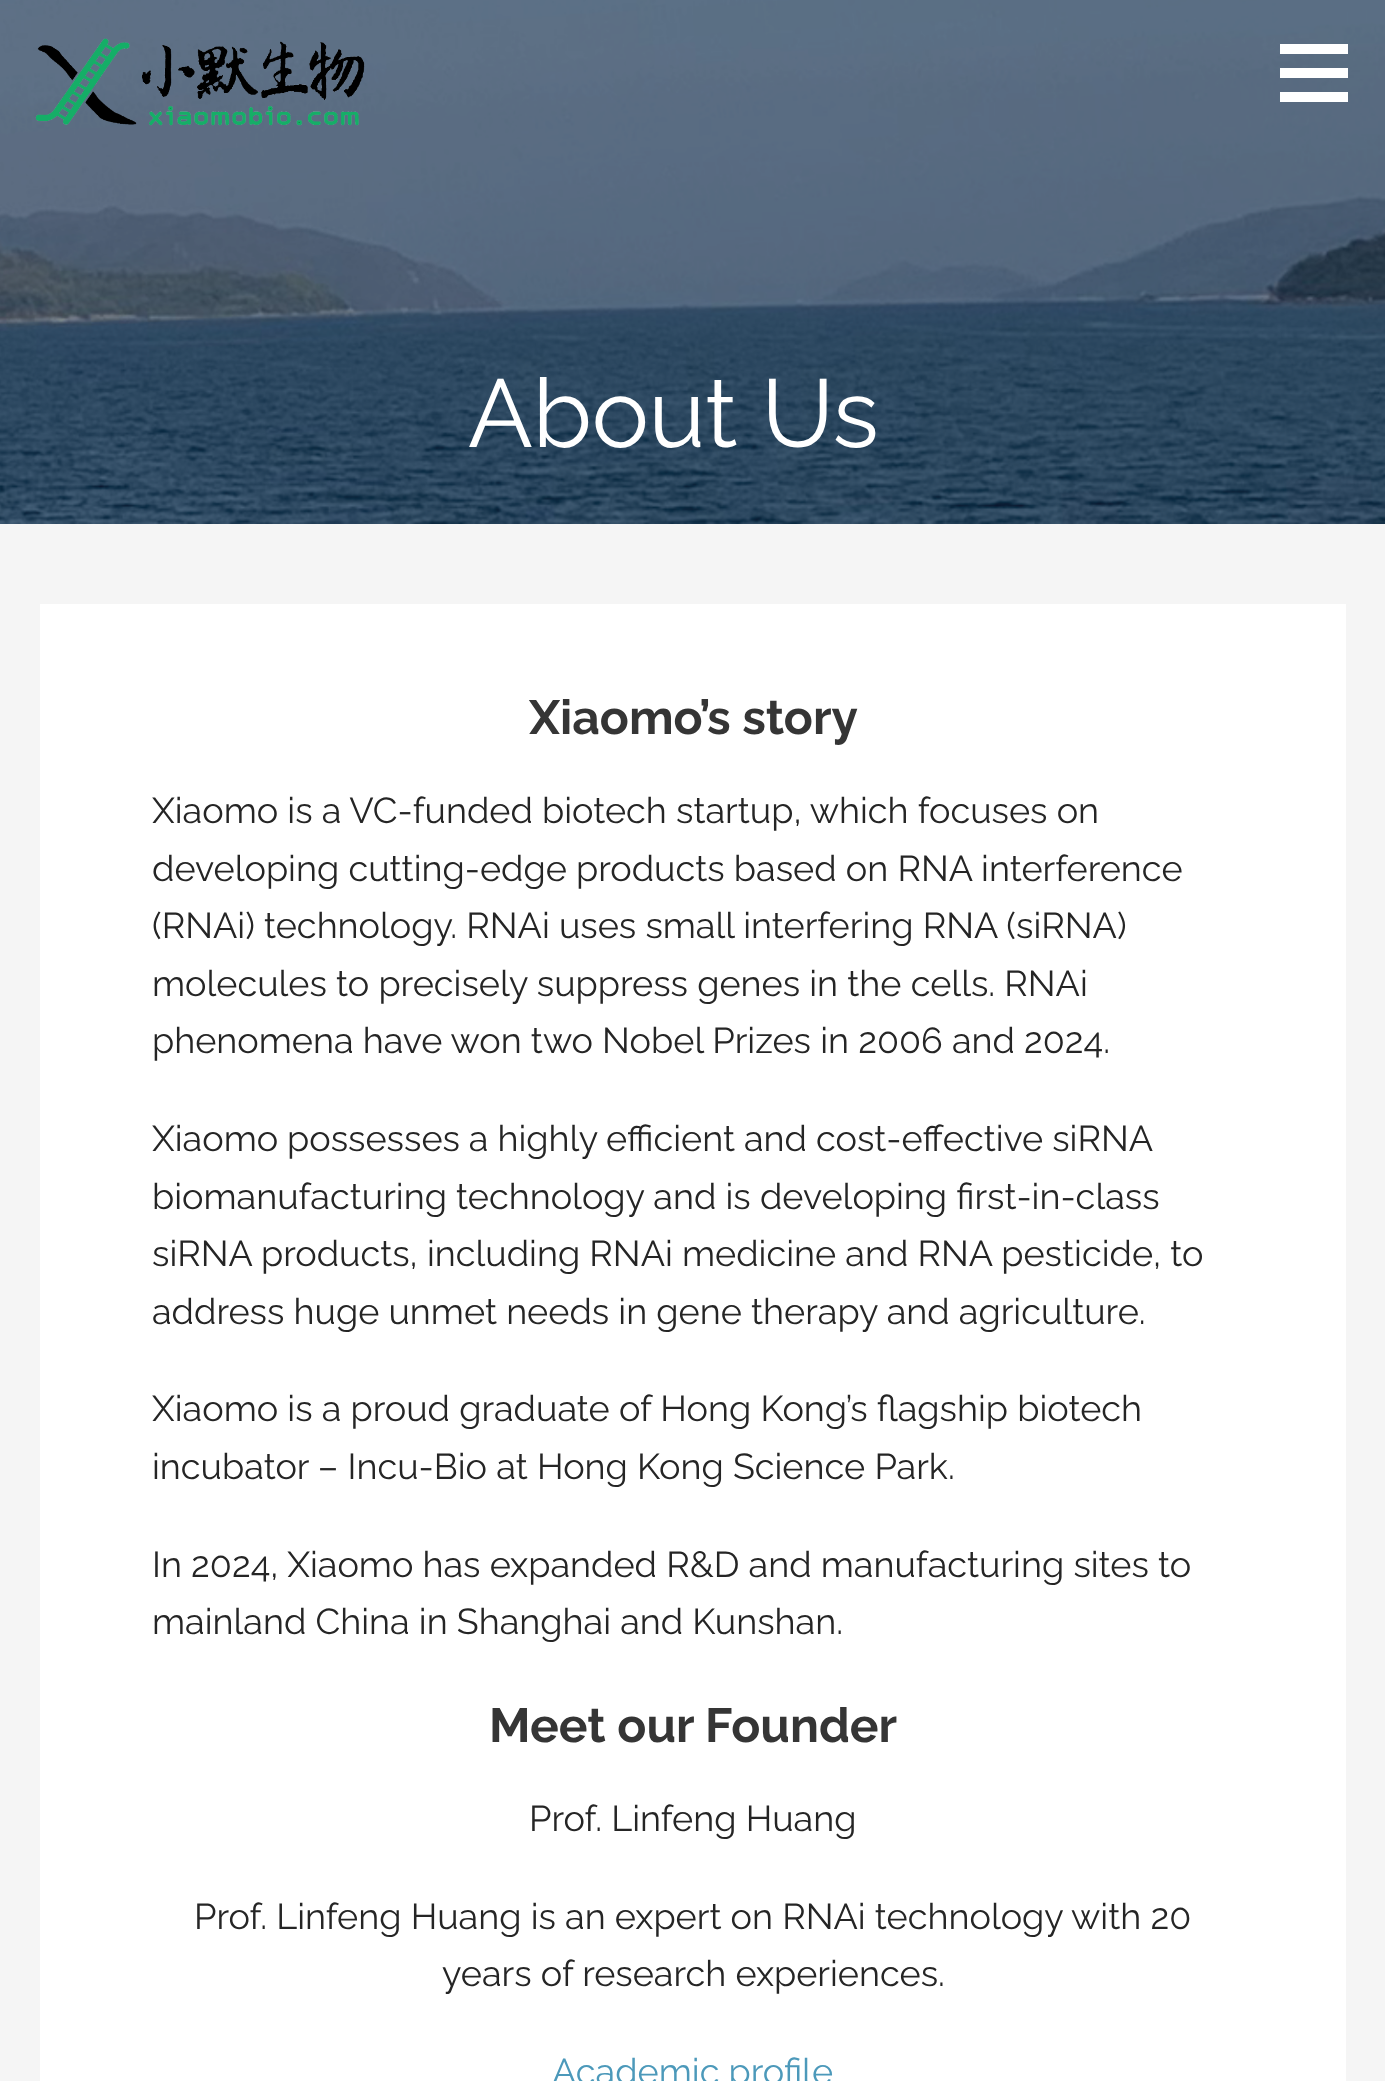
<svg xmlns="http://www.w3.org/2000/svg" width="1385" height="2081">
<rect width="100%" height="100%" fill="#f5f5f5"/>
<image x="0" y="0" width="1385" height="524" href="media/1.png"/>
<image x="35" y="38" width="330" height="88" href="media/2.png"/>
<rect x="1280" y="44" width="68" height="10" fill="#fff"/>
<rect x="1280" y="68" width="68" height="10" fill="#fff"/>
<rect x="1280" y="92" width="68" height="10" fill="#fff"/>
<text x="468" y="447" style="font-family:Raleway;font-size:96px;letter-spacing:-0.25px;fill:#fff">About Us</text>
<rect x="40" y="604" width="1306" height="1477" fill="#fff"/>
<text x="529" y="734" style="font-family:Raleway;font-size:48px;font-weight:bold;fill:#353535">Xiaomo’s story</text>
<text x="152" y="823" style="font-family:Raleway;font-size:36px;fill:#252525">Xiaomo is a VC-funded biotech startup, which focuses on</text>
<text x="152" y="881" style="font-family:Raleway;font-size:36px;fill:#252525">developing cutting-edge products based on RNA interference</text>
<text x="152" y="938" style="font-family:Raleway;font-size:36px;fill:#252525">(RNAi) technology. RNAi uses small interfering RNA (siRNA)</text>
<text x="152" y="996" style="font-family:Raleway;font-size:36px;fill:#252525">molecules to precisely suppress genes in the cells. RNAi</text>
<text x="152" y="1053" style="font-family:Raleway;font-size:36px;fill:#252525">phenomena have won two Nobel Prizes in 2006 and 2024.</text>
<text x="152" y="1151" word-spacing="-0.25" style="font-family:Raleway;font-size:36px;fill:#252525">Xiaomo possesses a highly efficient and cost-effective siRNA</text>
<text x="152" y="1209" style="font-family:Raleway;font-size:36px;fill:#252525">biomanufacturing technology and is developing first-in-class</text>
<text x="152" y="1266" style="font-family:Raleway;font-size:36px;fill:#252525">siRNA products, including RNAi medicine and RNA pesticide, to</text>
<text x="152" y="1324" style="font-family:Raleway;font-size:36px;fill:#252525">address huge unmet needs in gene therapy and agriculture.</text>
<text x="152" y="1421" style="font-family:Raleway;font-size:36px;fill:#252525">Xiaomo is a proud graduate of Hong Kong’s flagship biotech</text>
<text x="152" y="1479" style="font-family:Raleway;font-size:36px;fill:#252525">incubator – Incu-Bio at Hong Kong Science Park.</text>
<text x="152" y="1577" style="font-family:Raleway;font-size:36px;fill:#252525">In 2024, Xiaomo has expanded R&amp;D and manufacturing sites to</text>
<text x="152" y="1634" style="font-family:Raleway;font-size:36px;fill:#252525">mainland China in Shanghai and Kunshan.</text>
<text x="489" y="1742" style="font-family:Raleway;font-size:48px;font-weight:bold;fill:#353535">Meet our Founder</text>
<text x="529" y="1831" style="font-family:Raleway;font-size:36px;fill:#252525">Prof. Linfeng Huang</text>
<text x="194" y="1929" style="font-family:Raleway;font-size:36px;fill:#252525">Prof. Linfeng Huang is an expert on RNAi technology with 20</text>
<text x="442" y="1986" style="font-family:Raleway;font-size:36px;fill:#252525">years of research experiences.</text>
<text x="552" y="2084" style="font-family:Raleway;font-size:36px;fill:#4c99ba">Academic profile</text>
</svg>
